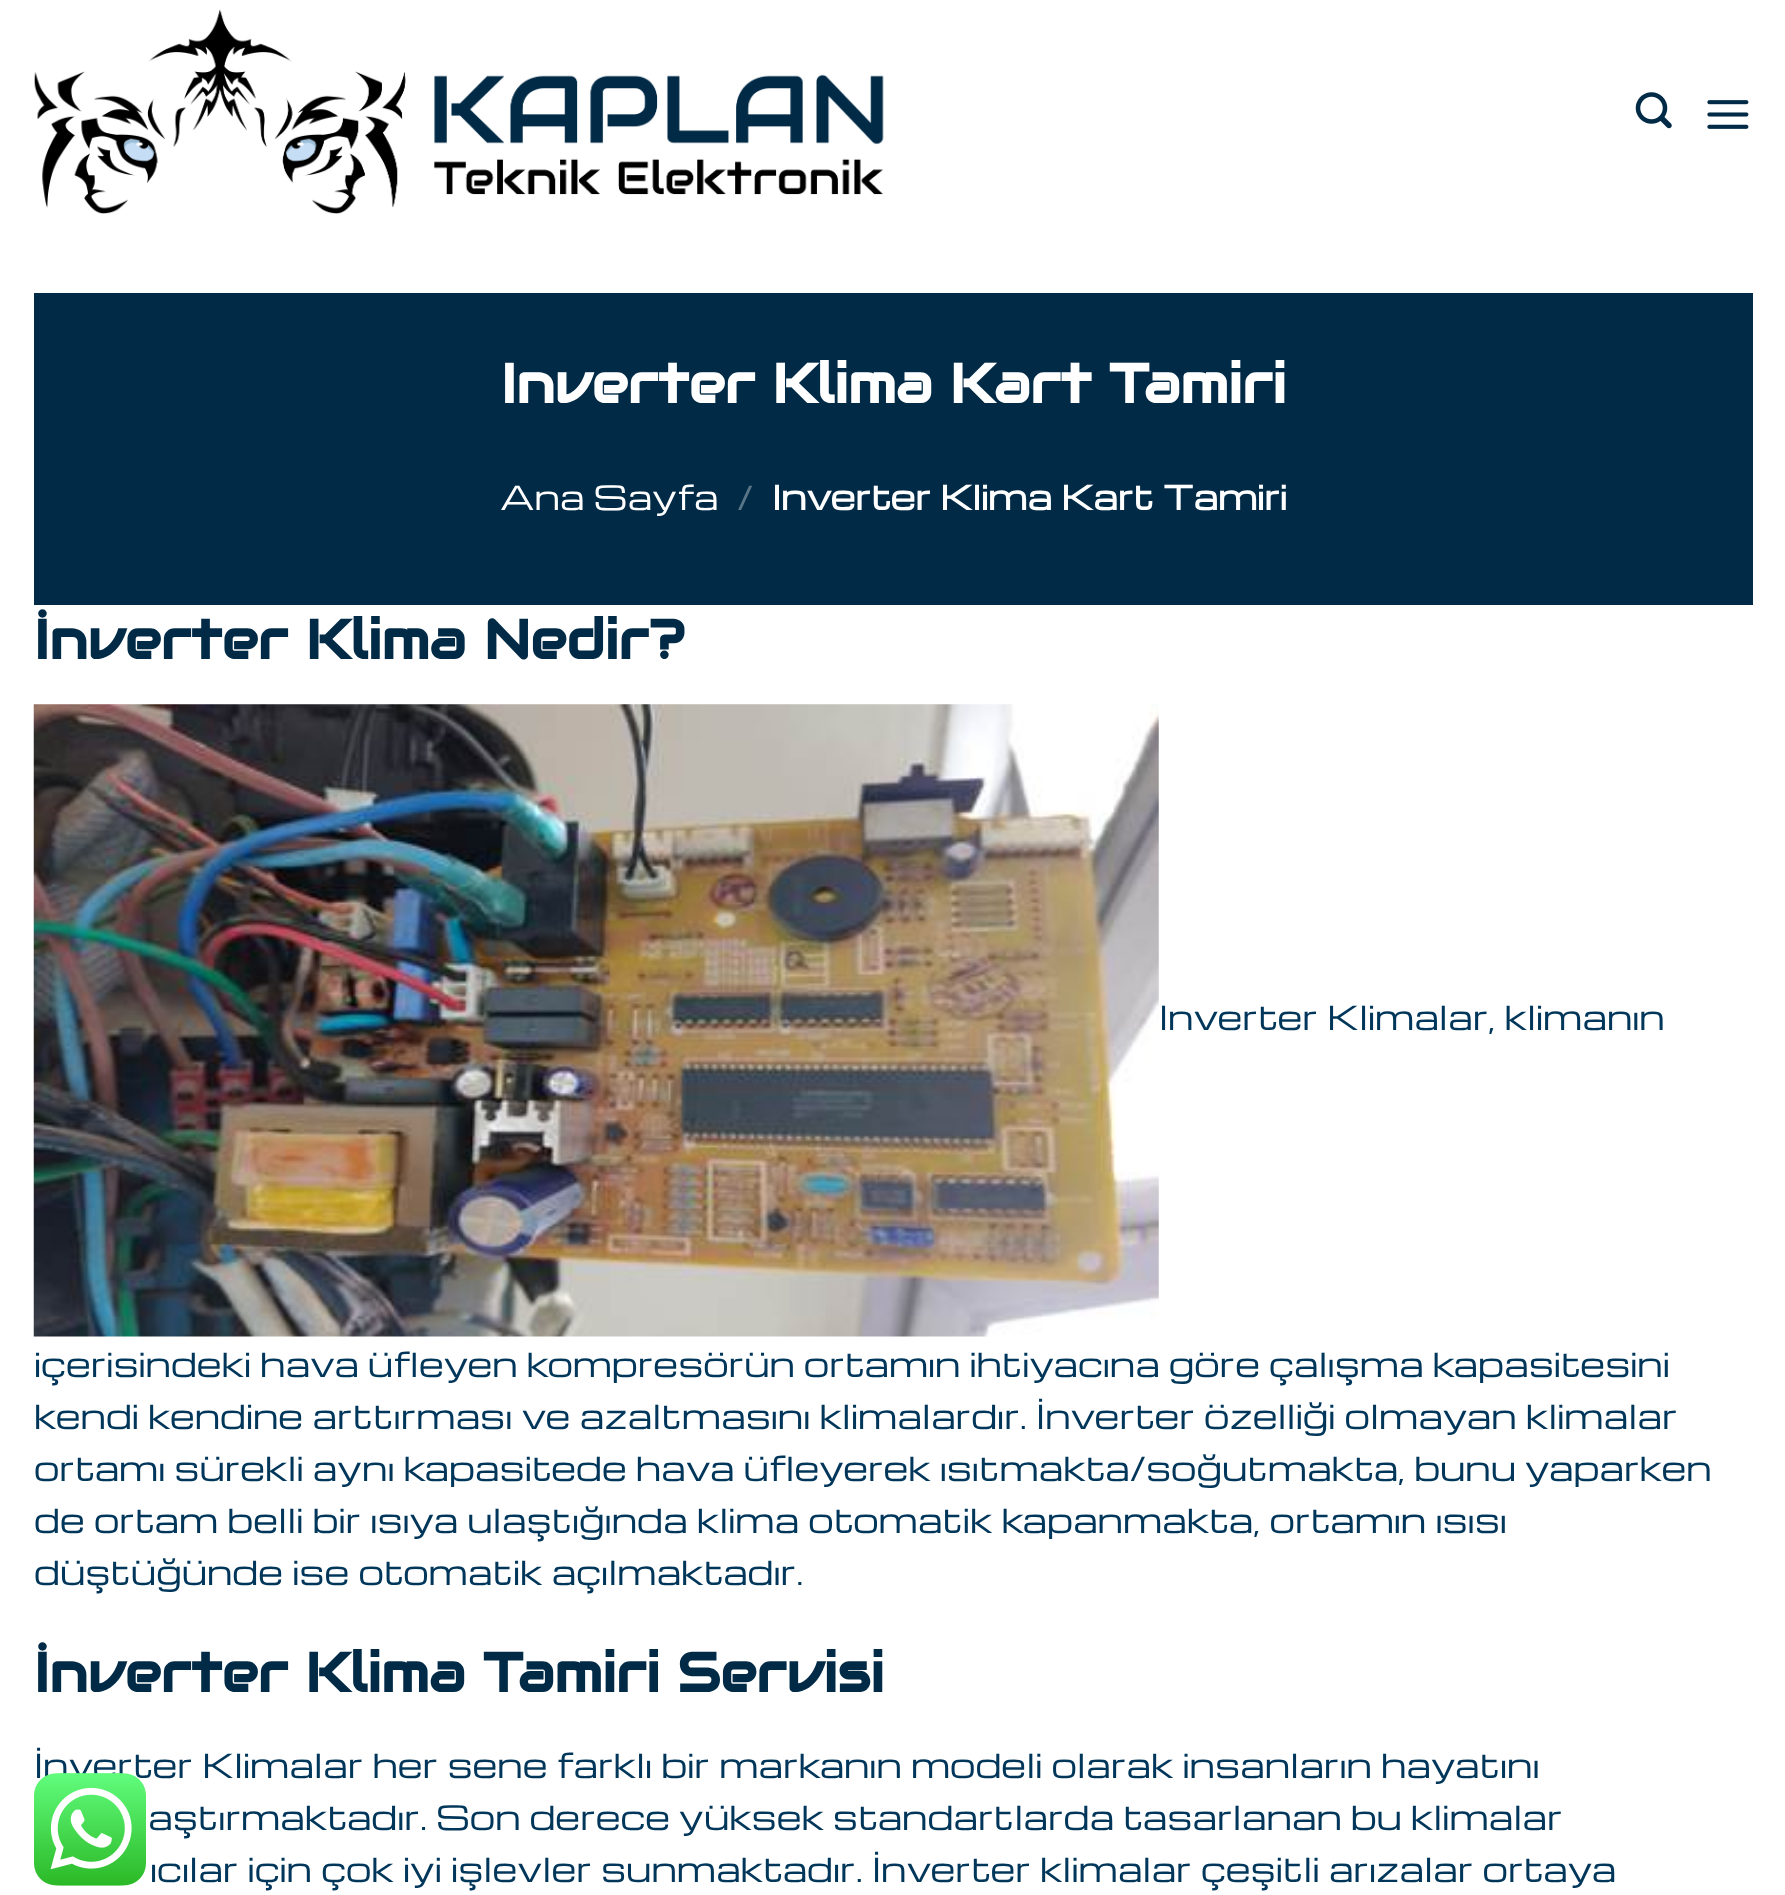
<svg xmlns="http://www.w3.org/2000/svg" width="1785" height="1895">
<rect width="100%" height="100%" fill="#fff"/>
<image x="34" y="9" width="850" height="205" href="media/1.png"/>
<image x="1635" y="92" width="37" height="37" href="media/2.png"/>
<image x="1707" y="100" width="42" height="29" href="media/3.png"/>
<rect x="34" y="293" width="1719" height="312" fill="#002a46"/>
<text x="501" y="403" word-spacing="-0.5" style="font-family:Audiowide;font-size:55.1px;font-weight:bold;fill:#fff">Inverter Klima Kart Tamiri</text>
<text x="500" y="510" style="font-family:Michroma;font-size:32.4px;fill:#fff">Ana Sayfa</text>
<text x="737" y="510" style="font-family:Michroma;font-size:32.4px;fill:#597587">/</text>
<text x="772" y="510" style="font-family:Michroma;font-size:32.4px;font-weight:bold;fill:#fff">Inverter Klima Kart Tamiri</text>
<text x="34" y="659" style="font-family:Audiowide;font-size:55.1px;font-weight:bold;fill:#002a46">İnverter Klima Nedir?</text>
<image x="33" y="704" width="1126" height="633" href="media/4.png"/>
<text x="1159" y="1030" style="font-family:Michroma;font-size:32.4px;fill:#00365a">Inverter Klimalar, klimanın</text>
<text x="34" y="1377" word-spacing="-0.25" style="font-family:Michroma;font-size:32.4px;fill:#00365a">içerisindeki hava üfleyen kompresörün ortamın ihtiyacına göre çalışma kapasitesini</text>
<text x="34" y="1429" style="font-family:Michroma;font-size:32.4px;fill:#00365a">kendi kendine arttırması ve azaltmasını klimalardır. İnverter özelliği olmayan klimalar</text>
<text x="34" y="1481" word-spacing="-0.25" style="font-family:Michroma;font-size:32.4px;fill:#00365a">ortamı sürekli aynı kapasitede hava üfleyerek ısıtmakta/soğutmakta, bunu yaparken</text>
<text x="34" y="1533" style="font-family:Michroma;font-size:32.4px;fill:#00365a">de ortam belli bir ısıya ulaştığında klima otomatik kapanmakta, ortamın ısısı</text>
<text x="34" y="1585" style="font-family:Michroma;font-size:32.4px;fill:#00365a">düştüğünde ise otomatik açılmaktadır.</text>
<text x="34" y="1692" word-spacing="-0.5" style="font-family:Audiowide;font-size:55.1px;font-weight:bold;fill:#002a46">İnverter Klima Tamiri Servisi</text>
<text x="34" y="1778" style="font-family:Michroma;font-size:32.4px;fill:#00365a">İnverter Klimalar her sene farklı bir markanın modeli olarak insanların hayatını</text>
<text x="148" y="1830" word-spacing="-0.25" style="font-family:Michroma;font-size:32.4px;fill:#00365a">aştırmaktadır. Son derece yüksek standartlarda tasarlanan bu klimalar</text>
<text x="150" y="1882" style="font-family:Michroma;font-size:32.4px;fill:#00365a">ıcılar için çok iyi işlevler sunmaktadır. İnverter klimalar çeşitli arızalar ortaya</text>
<image x="34" y="1773" width="112" height="113" href="media/5.png"/>
</svg>
